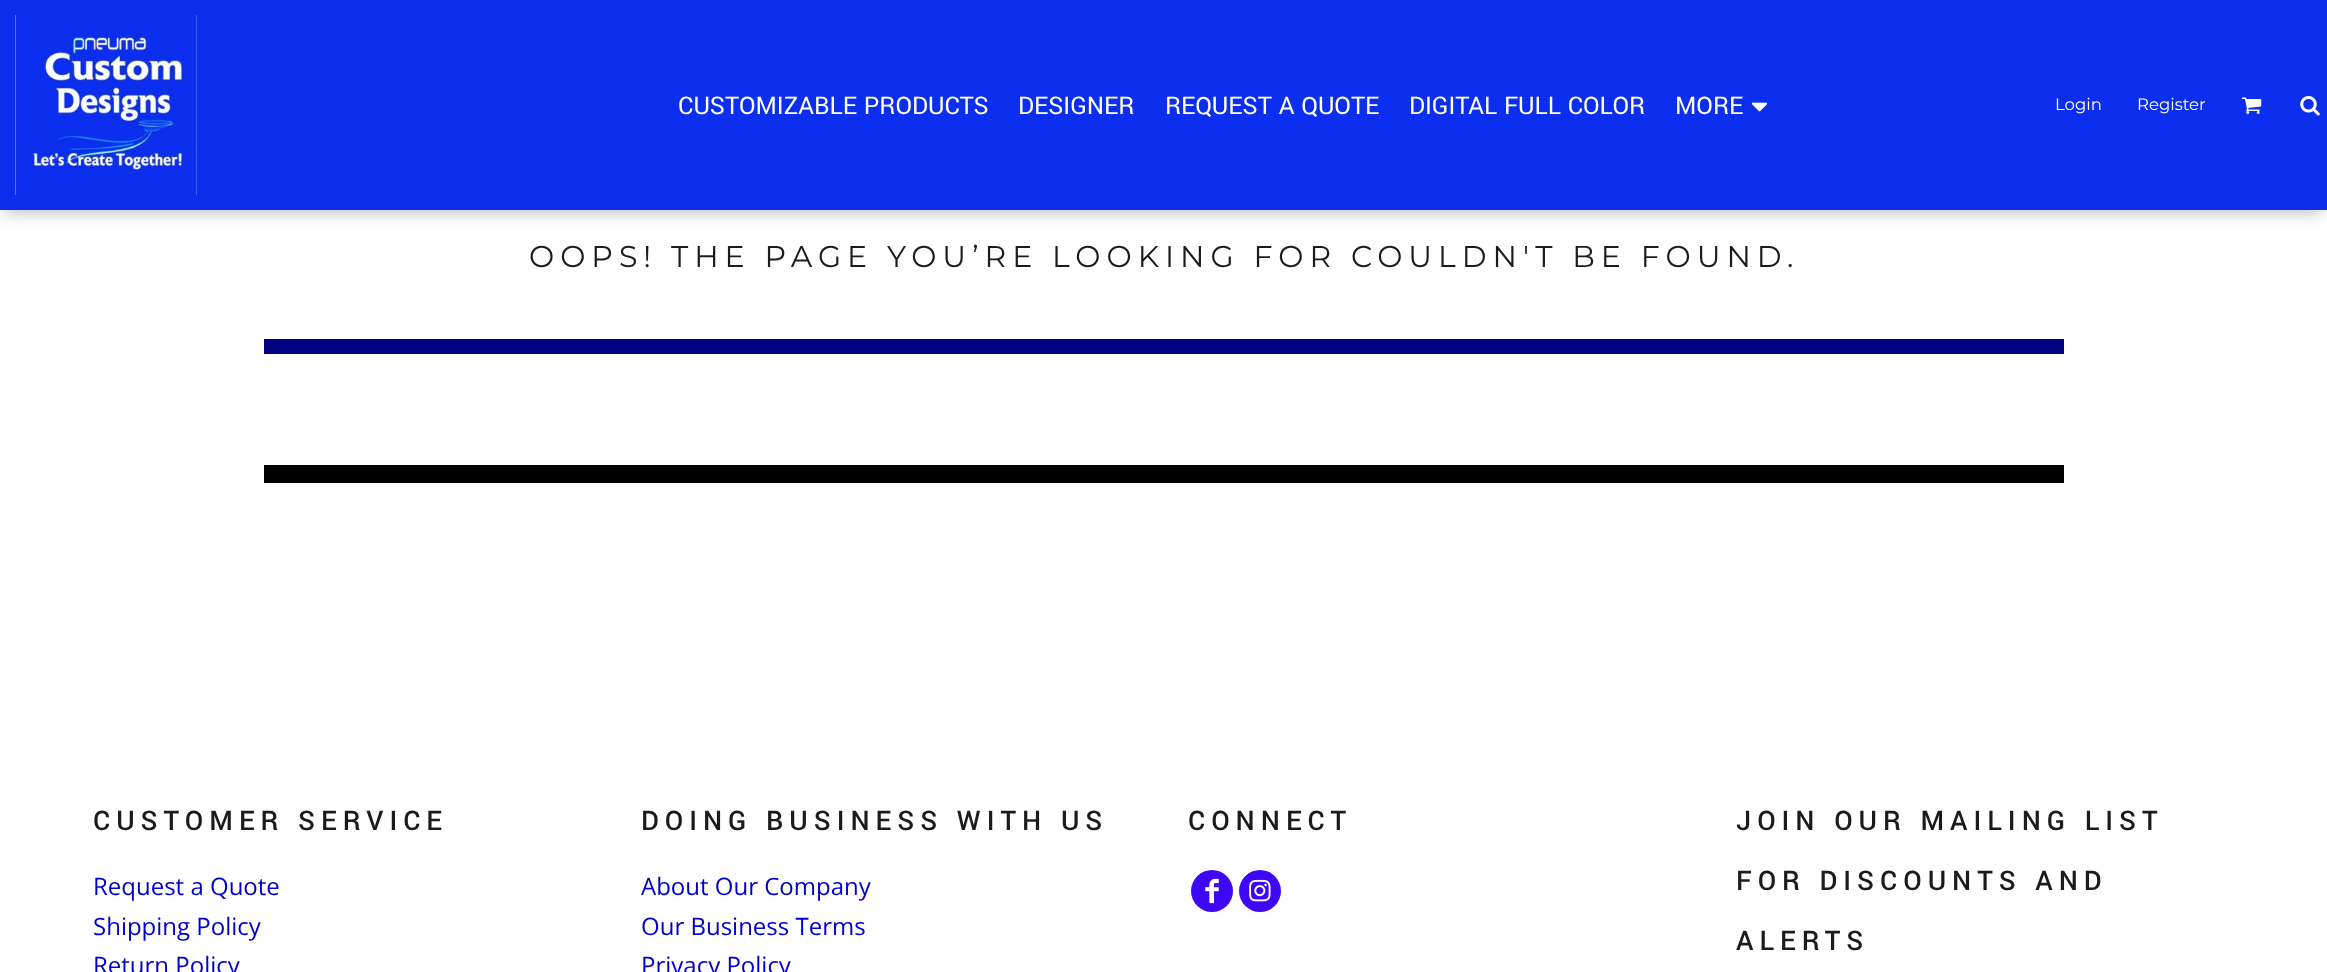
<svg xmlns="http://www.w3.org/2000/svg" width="2327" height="972">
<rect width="100%" height="100%" fill="#fff"/>
<rect x="5" y="15" width="2316" height="198" fill="#00000040" filter="blur(7.5px)"/>
<rect width="2327" height="210" fill="#0c2eef"/>
<image x="15" y="15" width="182" height="180" href="media/1.png"/>
<text x="678" y="114" style="font-family:Yantramanav;font-size:27px;fill:#fff">CUSTOMIZABLE PRODUCTS</text>
<text x="1018" y="114" style="font-family:Yantramanav;font-size:27px;fill:#fff">DESIGNER</text>
<text x="1165" y="114" style="font-family:Yantramanav;font-size:27px;fill:#fff">REQUEST A QUOTE</text>
<text x="1409" y="114" style="font-family:Yantramanav;font-size:27px;fill:#fff">DIGITAL FULL COLOR</text>
<text x="1675" y="114" style="font-family:Yantramanav;font-size:27px;fill:#fff">MORE</text>
<image x="1751" y="102" width="17" height="10" href="media/2.png"/>
<text x="2055" y="110" style="font-family:Montserrat;font-size:16.5px;fill:#fff">Login</text>
<text x="2137" y="110" style="font-family:Montserrat;font-size:16.5px;fill:#fff">Register</text>
<image x="2241" y="97" width="21" height="17" href="media/3.png"/>
<image x="2300" y="96" width="20" height="20" href="media/4.png"/>
<text x="529" y="267" style="font-family:Montserrat;font-size:30px;letter-spacing:6px;fill:#1c1b1b">OOPS! THE PAGE YOU’RE LOOKING FOR COULDN'T BE FOUND.</text>
<rect x="264" y="339" width="1800" height="15" fill="#000080"/>
<rect x="264" y="465" width="1800" height="18" fill="#000"/>
<text x="93" y="830" style="font-family:Yantramanav;font-size:30px;font-weight:500;letter-spacing:6px;fill:#1c1b1b">CUSTOMER SERVICE</text>
<text x="93" y="895" style="font-family:Open Sans;font-size:24px;fill:#0000cd">Request a Quote</text>
<text x="93" y="935" style="font-family:Open Sans;font-size:24px;fill:#0000cd">Shipping Policy</text>
<text x="93" y="974" style="font-family:Open Sans;font-size:24px;fill:#0000cd">Return Policy</text>
<text x="641" y="830" style="font-family:Yantramanav;font-size:30px;font-weight:500;letter-spacing:6px;fill:#1c1b1b">DOING BUSINESS WITH US</text>
<text x="641" y="895" style="font-family:Open Sans;font-size:24px;fill:#0000cd">About Our Company</text>
<text x="641" y="935" style="font-family:Open Sans;font-size:24px;fill:#0000cd">Our Business Terms</text>
<text x="641" y="974" style="font-family:Open Sans;font-size:24px;fill:#0000cd">Privacy Policy</text>
<text x="1188" y="830" style="font-family:Yantramanav;font-size:30px;font-weight:500;letter-spacing:6px;fill:#1c1b1b">CONNECT</text>
<circle cx="1212" cy="891" r="21" fill="#3e08f7"/>
<image x="1205" y="878" width="14" height="26" href="media/5.png"/>
<circle cx="1260" cy="891" r="21" fill="#3e08f7"/>
<image x="1249" y="879" width="22" height="23" href="media/6.png"/>
<text x="1736" y="830" style="font-family:Yantramanav;font-size:30px;font-weight:500;letter-spacing:6px;fill:#1c1b1b">JOIN OUR MAILING LIST</text>
<text x="1736" y="890" style="font-family:Yantramanav;font-size:30px;font-weight:500;letter-spacing:6px;fill:#1c1b1b">FOR DISCOUNTS AND</text>
<text x="1736" y="950" style="font-family:Yantramanav;font-size:30px;font-weight:500;letter-spacing:6px;fill:#1c1b1b">ALERTS</text>
</svg>
